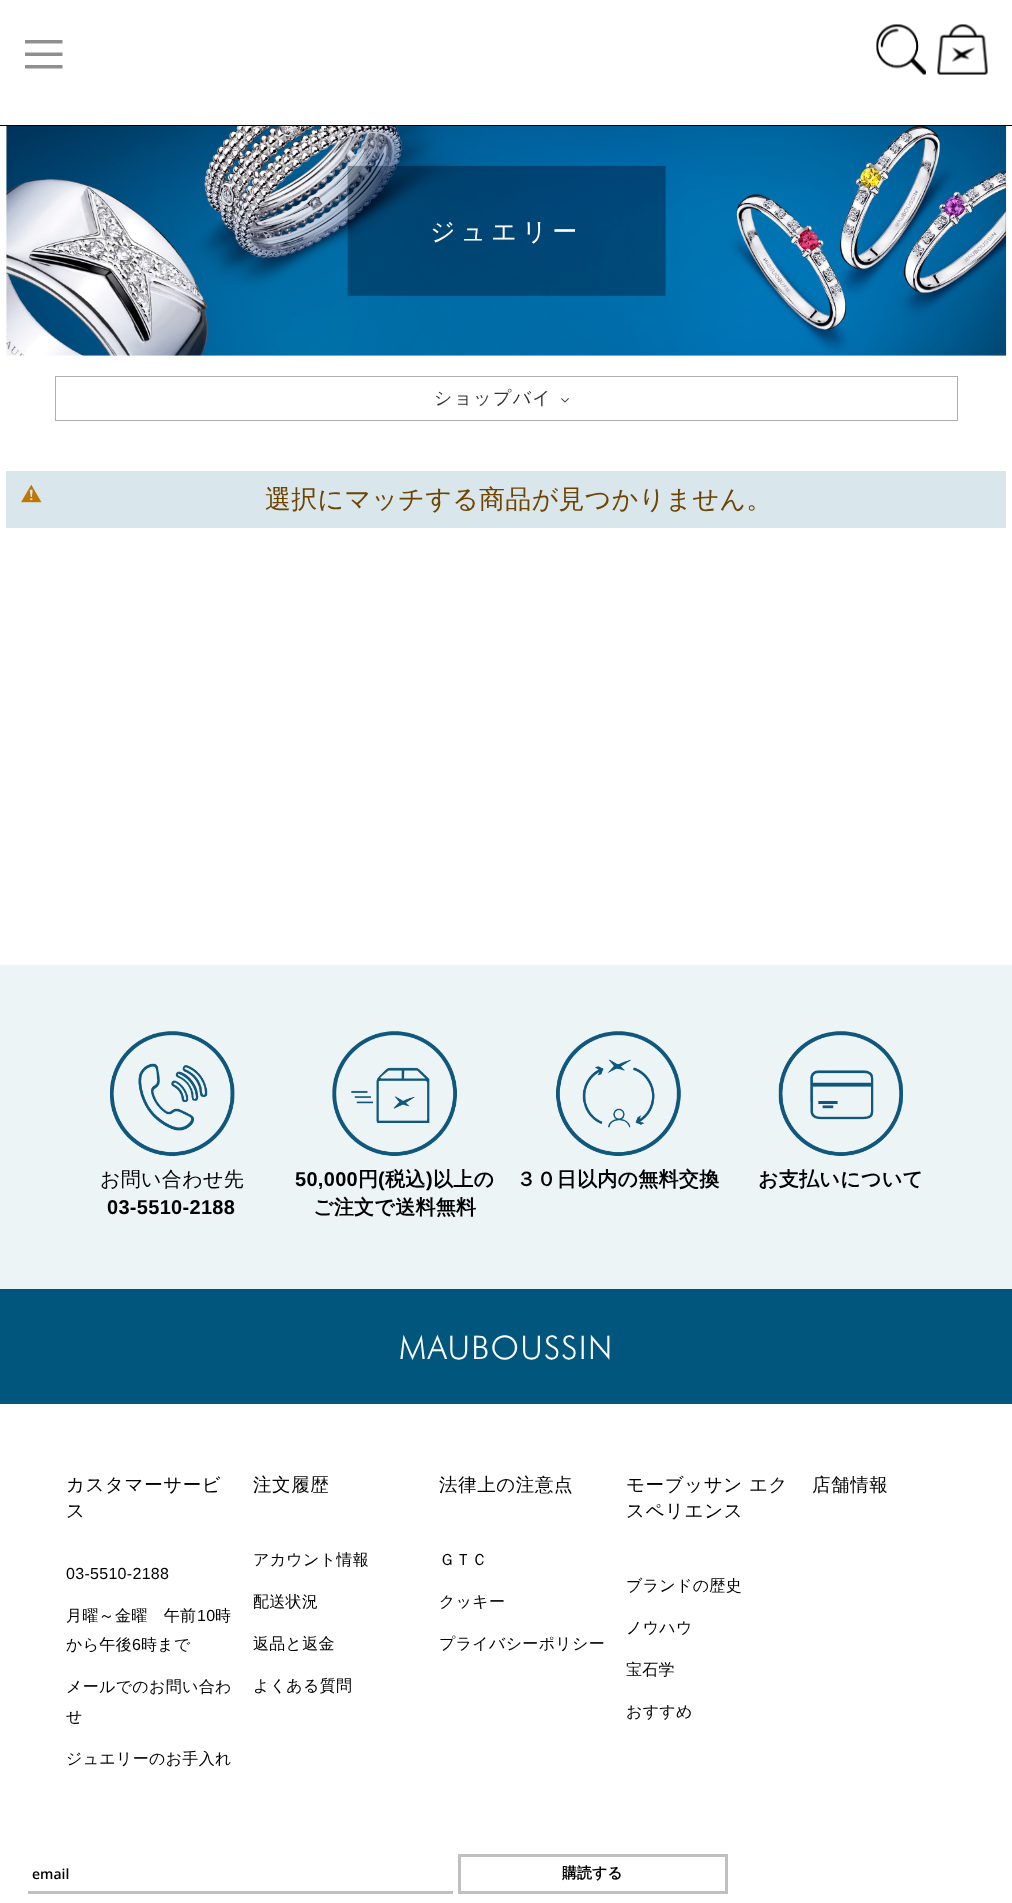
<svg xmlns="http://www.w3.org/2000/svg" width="1012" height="1903">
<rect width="100%" height="100%" fill="#fff"/>
<rect y="125" width="1012" height="1" fill="#000"/>
<path d="M25 40v3.5h37.5v-3.5zm0 16h37.5v-3.5h-37.5zm0 12.5h37.5v-3.5h-37.5z" fill="#8f8f8f"/>
<image x="876" y="24" width="50" height="51" href="media/1.png"/>
<image x="937" y="24" width="51" height="51" href="media/2.png"/>
<image x="6" y="126" width="1001" height="230" href="media/3.png"/>
<text x="430" y="240" style="font-family:WenQuanYi Zen Hei;font-size:25px;font-weight:500;letter-spacing:5px;fill:#fff">ジュエリー</text>
<rect x="55.5" y="376.5" width="902" height="44" fill="none" stroke="#afafaf"/>
<text x="434" y="404" style="font-family:WenQuanYi Zen Hei;font-size:18px;font-weight:500;letter-spacing:1.25px;fill:#333">ショップバイ</text>
<image x="561" y="398" width="8" height="5" href="media/4.png"/>
<rect x="6" y="471" width="1000" height="57" fill="#d9e6ec"/>
<image x="21" y="484" width="21" height="19" href="media/5.png"/>
<text x="265" y="508" style="font-family:WenQuanYi Zen Hei;font-size:26px;font-weight:500;letter-spacing:0.3px;fill:#6f4400">選択にマッチする商品が見つかりません。</text>
<rect y="1289" width="1012" height="115" fill="#00567d"/>
<rect y="965" width="1012" height="324" fill="#edf4f5"/>
<image x="109" y="1031" width="126" height="125" href="media/6.png"/>
<text x="100" y="1186" style="font-family:WenQuanYi Zen Hei;font-size:20px;font-weight:500;letter-spacing:0.3px;fill:#000">お問い合わせ先</text>
<text x="107" y="1214" style="font-family:Liberation Sans;font-size:20px;font-weight:bold;letter-spacing:0.3px;fill:#000">03-5510-2188</text>
<image x="332" y="1031" width="125" height="125" href="media/7.png"/>
<text x="295" y="1186" style="font-family:Liberation Sans;font-size:20px;font-weight:bold;letter-spacing:0.3px;fill:#000">50,000</text>
<text x="358" y="1186" style="font-family:WenQuanYi Zen Hei;font-size:20px;font-weight:bold;letter-spacing:0.3px;fill:#000">円</text>
<text x="378" y="1186" style="font-family:Liberation Sans;font-size:20px;font-weight:bold;letter-spacing:0.3px;fill:#000">(</text>
<text x="385" y="1186" style="font-family:WenQuanYi Zen Hei;font-size:20px;font-weight:bold;letter-spacing:0.3px;fill:#000">税込</text>
<text x="426" y="1186" style="font-family:Liberation Sans;font-size:20px;font-weight:bold;letter-spacing:0.3px;fill:#000">)</text>
<text x="433" y="1186" style="font-family:WenQuanYi Zen Hei;font-size:20px;font-weight:bold;letter-spacing:0.3px;fill:#000">以上の</text>
<text x="313" y="1214" style="font-family:WenQuanYi Zen Hei;font-size:20px;font-weight:bold;letter-spacing:0.3px;fill:#000">ご注文で送料無料</text>
<image x="556" y="1031" width="125" height="125" href="media/8.png"/>
<text x="516" y="1186" style="font-family:WenQuanYi Zen Hei;font-size:20px;font-weight:bold;letter-spacing:0.3px;fill:#000">３０日以内の無料交換</text>
<image x="778" y="1031" width="125" height="125" href="media/9.png"/>
<text x="758" y="1186" style="font-family:WenQuanYi Zen Hei;font-size:20px;font-weight:bold;letter-spacing:0.3px;fill:#000">お支払いについて</text>
<text x="399" y="1359" style="font-family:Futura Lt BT;font-size:32.5px;font-weight:300;letter-spacing:1.25px;fill:#fff">MAUBOUSSIN</text>
<text x="812" y="1491" style="font-family:WenQuanYi Zen Hei;font-size:18.5px;font-weight:500;letter-spacing:0.6px;fill:#000">店舗情報</text>
<rect x="28" y="1891" width="425" height="3" fill="#c0c0c0"/>
<text x="32" y="1879" style="font-family:Open Sans;font-size:14px;font-weight:600;fill:#000">email</text>
<rect x="459.5" y="1855.5" width="267" height="37" fill="none" stroke="#c0c0c0" stroke-width="3"/>
<text x="562" y="1878" style="font-family:WenQuanYi Zen Hei;font-size:15px;font-weight:bold;fill:#000">購読する</text>
<text x="66" y="1491" style="font-family:WenQuanYi Zen Hei;font-size:18.5px;font-weight:500;letter-spacing:0.6px;fill:#000">カスタマーサービ</text>
<text x="66" y="1517" style="font-family:WenQuanYi Zen Hei;font-size:18.5px;font-weight:500;letter-spacing:0.6px;fill:#000">ス</text>
<text x="66" y="1579" style="font-family:Liberation Sans;font-size:16px;letter-spacing:0.3px;fill:#000">03-5510-2188</text>
<text x="66" y="1621" style="font-family:WenQuanYi Zen Hei;font-size:16px;font-weight:500;letter-spacing:0.3px;fill:#000">月曜～金曜　午前</text>
<text x="197" y="1621" style="font-family:Liberation Sans;font-size:16px;letter-spacing:0.3px;fill:#000">10</text>
<text x="215" y="1621" style="font-family:WenQuanYi Zen Hei;font-size:16px;font-weight:500;letter-spacing:0.3px;fill:#000">時</text>
<text x="66" y="1650" style="font-family:WenQuanYi Zen Hei;font-size:16px;font-weight:500;letter-spacing:0.3px;fill:#000">から午後</text>
<text x="132" y="1650" style="font-family:Liberation Sans;font-size:16px;letter-spacing:0.3px;fill:#000">6</text>
<text x="141" y="1650" style="font-family:WenQuanYi Zen Hei;font-size:16px;font-weight:500;letter-spacing:0.3px;fill:#000">時まで</text>
<text x="66" y="1692" style="font-family:WenQuanYi Zen Hei;font-size:16px;font-weight:500;letter-spacing:0.3px;fill:#000">メールでのお問い合わ</text>
<text x="66" y="1722" style="font-family:WenQuanYi Zen Hei;font-size:16px;font-weight:500;letter-spacing:0.3px;fill:#000">せ</text>
<text x="66" y="1764" style="font-family:WenQuanYi Zen Hei;font-size:16px;font-weight:500;letter-spacing:0.3px;fill:#000">ジュエリーのお手入れ</text>
<text x="253" y="1491" style="font-family:WenQuanYi Zen Hei;font-size:18.5px;font-weight:500;letter-spacing:0.6px;fill:#000">注文履歴</text>
<text x="253" y="1565" style="font-family:WenQuanYi Zen Hei;font-size:16px;font-weight:500;letter-spacing:0.3px;fill:#000">アカウント情報</text>
<text x="253" y="1607" style="font-family:WenQuanYi Zen Hei;font-size:16px;font-weight:500;letter-spacing:0.3px;fill:#000">配送状況</text>
<text x="253" y="1649" style="font-family:WenQuanYi Zen Hei;font-size:16px;font-weight:500;letter-spacing:0.3px;fill:#000">返品と返金</text>
<text x="253" y="1691" style="font-family:WenQuanYi Zen Hei;font-size:16px;font-weight:500;letter-spacing:0.3px;fill:#000">よくある質問</text>
<text x="439" y="1491" style="font-family:WenQuanYi Zen Hei;font-size:18.5px;font-weight:500;letter-spacing:0.6px;fill:#000">法律上の注意点</text>
<text x="439" y="1565" style="font-family:WenQuanYi Zen Hei;font-size:16px;font-weight:500;letter-spacing:0.3px;fill:#000">ＧＴＣ</text>
<text x="439" y="1607" style="font-family:WenQuanYi Zen Hei;font-size:16px;font-weight:500;letter-spacing:0.3px;fill:#000">クッキー</text>
<text x="439" y="1649" style="font-family:WenQuanYi Zen Hei;font-size:16px;font-weight:500;letter-spacing:0.3px;fill:#000">プライバシーポリシー</text>
<text x="626" y="1491" style="font-family:WenQuanYi Zen Hei;font-size:18.5px;font-weight:500;letter-spacing:0.6px;fill:#000">モーブッサン エク</text>
<text x="626" y="1517" style="font-family:WenQuanYi Zen Hei;font-size:18.5px;font-weight:500;letter-spacing:0.6px;fill:#000">スペリエンス</text>
<text x="626" y="1591" style="font-family:WenQuanYi Zen Hei;font-size:16px;font-weight:500;letter-spacing:0.3px;fill:#000">ブランドの歴史</text>
<text x="626" y="1633" style="font-family:WenQuanYi Zen Hei;font-size:16px;font-weight:500;letter-spacing:0.3px;fill:#000">ノウハウ</text>
<text x="626" y="1675" style="font-family:WenQuanYi Zen Hei;font-size:16px;font-weight:500;letter-spacing:0.3px;fill:#000">宝石学</text>
<text x="626" y="1717" style="font-family:WenQuanYi Zen Hei;font-size:16px;font-weight:500;letter-spacing:0.3px;fill:#000">おすすめ</text>
</svg>
